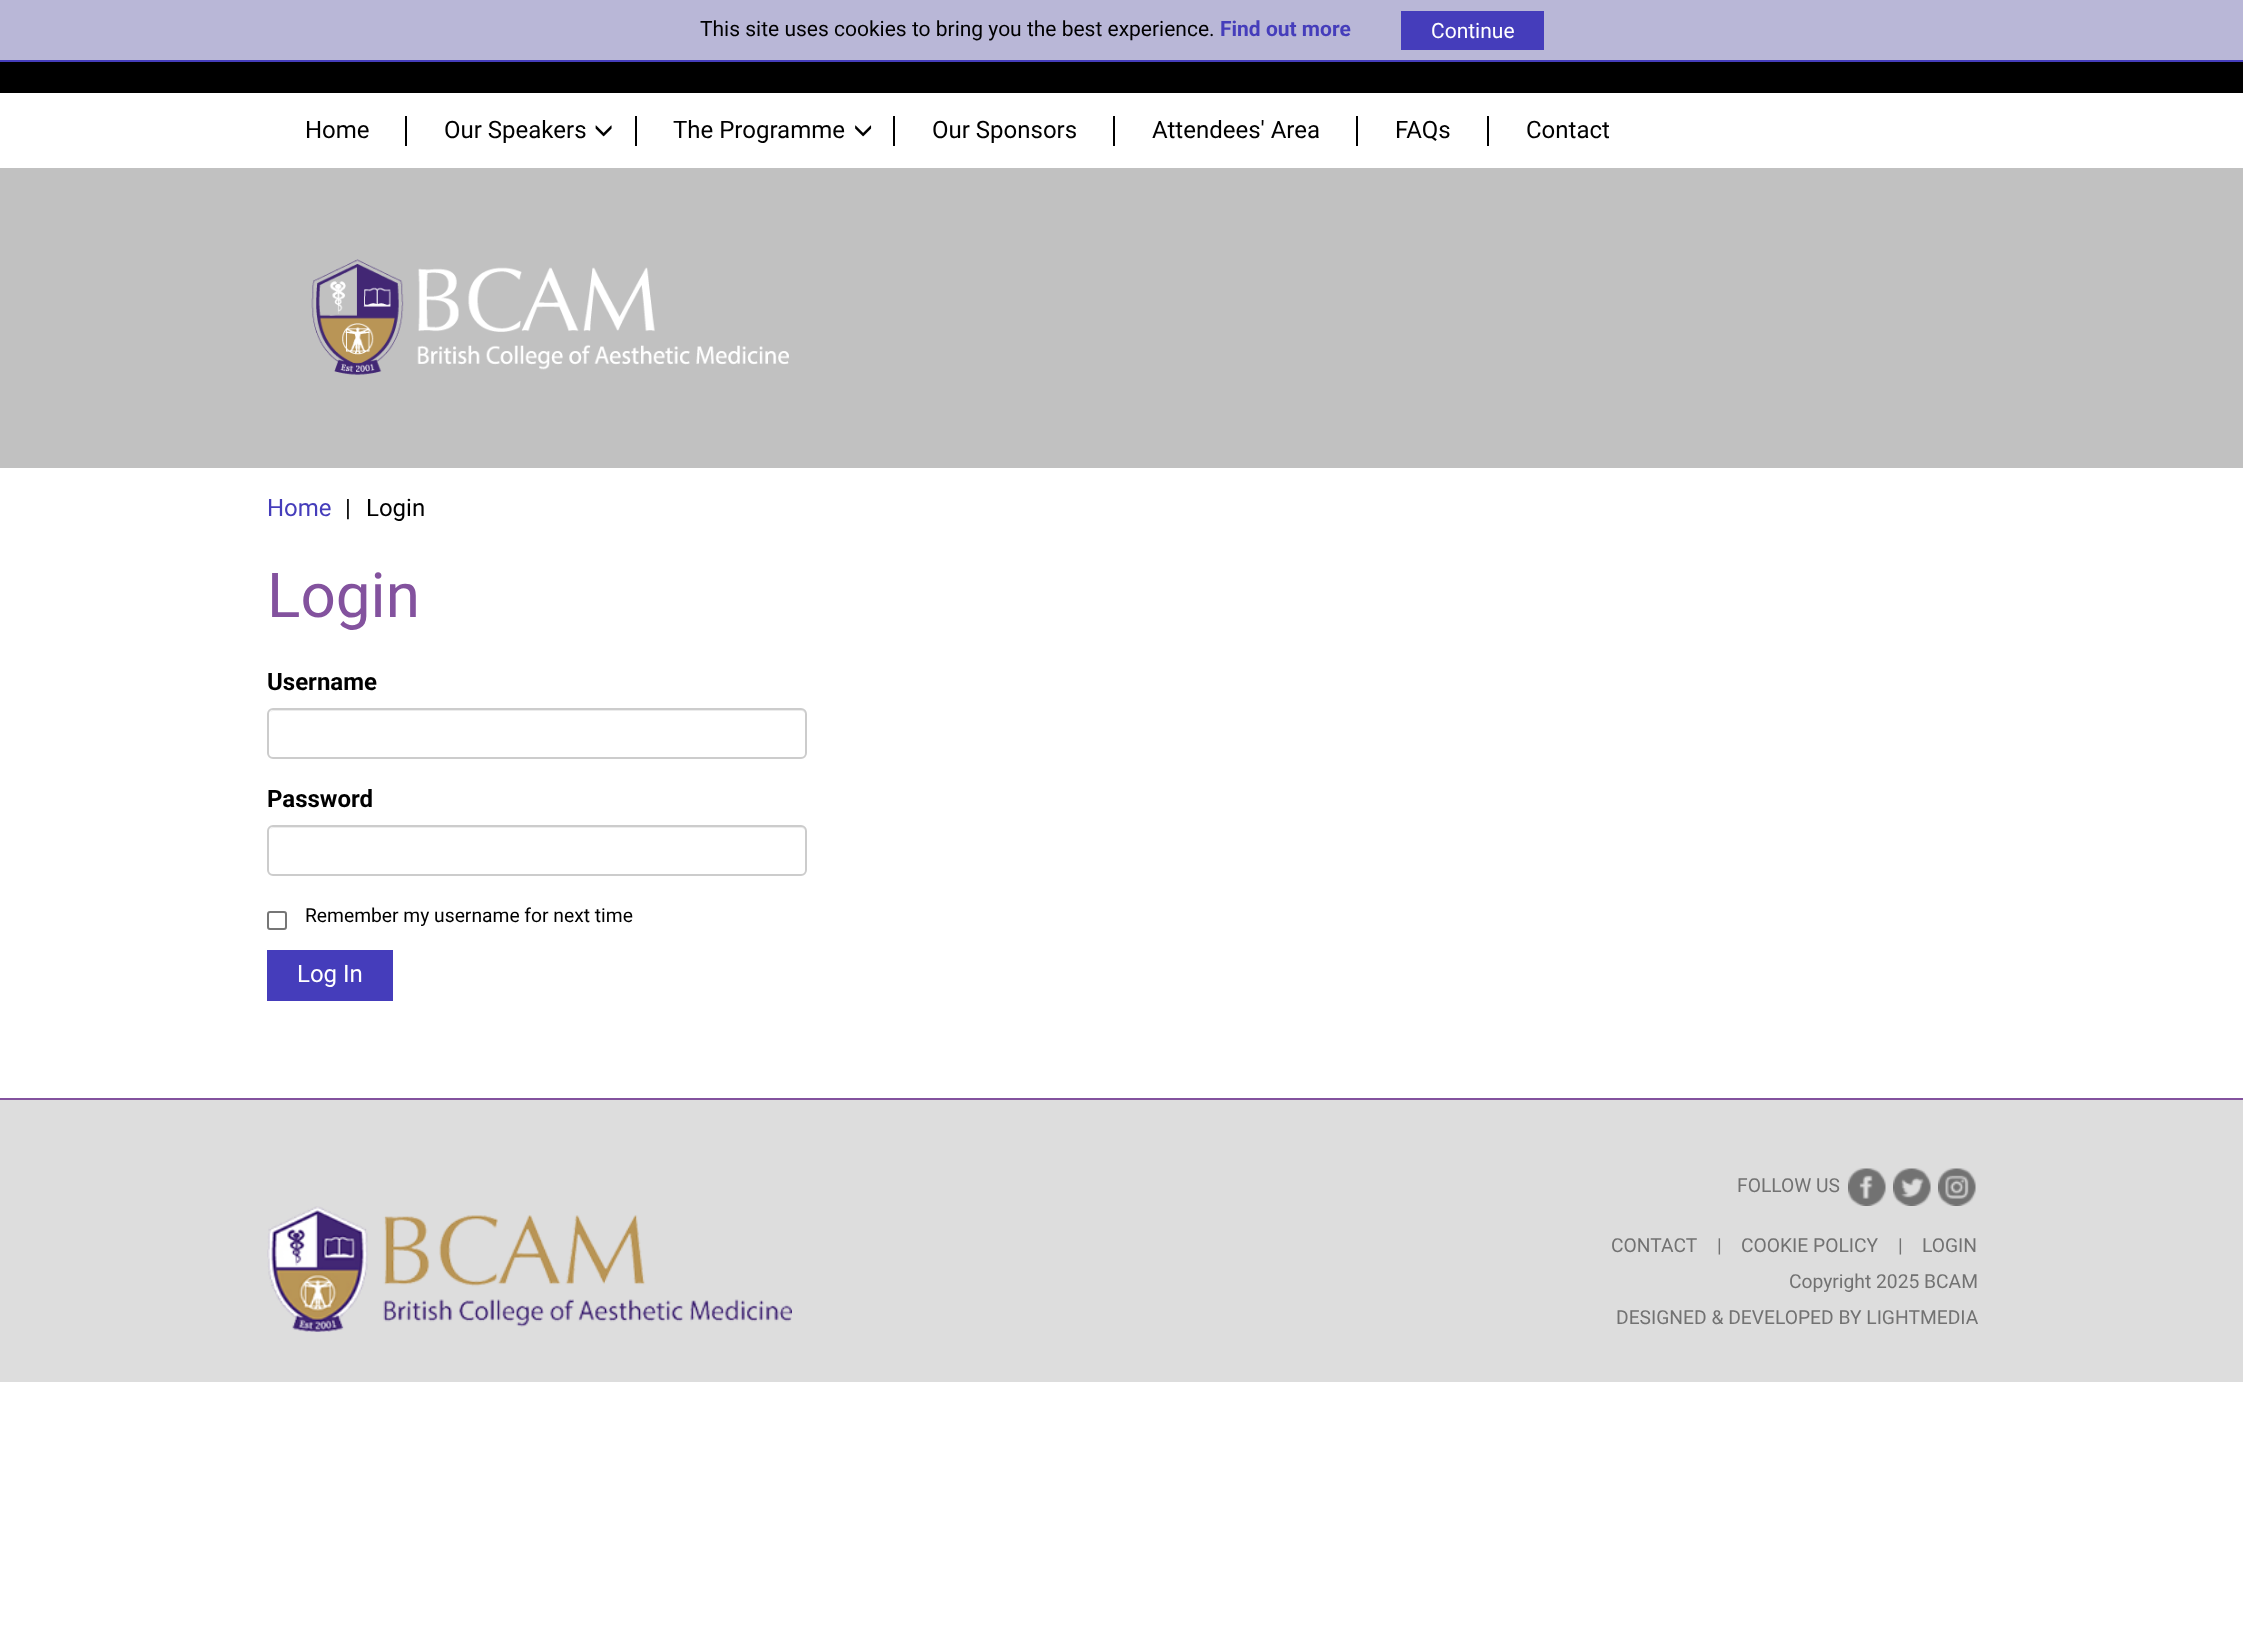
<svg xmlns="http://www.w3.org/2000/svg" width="2243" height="1630">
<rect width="100%" height="100%" fill="#fff"/>
<rect width="2243" height="60" fill="#b9b7d7"/>
<rect y="60" width="2243" height="2" fill="#453dbb"/>
<text x="700" y="36" style="font-family:Roboto;font-size:21px;fill:#000">This site uses cookies to bring you the best experience.</text>
<text x="1220" y="36" style="font-family:Roboto;font-size:21px;font-weight:bold;fill:#453dbb">Find out more</text>
<rect x="1401" y="11" width="143" height="39" fill="#453dbb"/>
<text x="1431" y="38" style="font-family:Roboto;font-size:21px;fill:#fff">Continue</text>
<rect y="62" width="2243" height="31" fill="#000"/>
<text x="305" y="138" style="font-family:Roboto;font-size:24px;fill:#000">Home</text>
<rect x="405" y="116" width="2" height="30" fill="#000"/>
<text x="444" y="138" style="font-family:Roboto;font-size:24px;fill:#000">Our Speakers</text>
<image x="595" y="125" width="17" height="12" href="media/1.png"/>
<rect x="635" y="116" width="2" height="30" fill="#000"/>
<text x="673" y="138" style="font-family:Roboto;font-size:24px;fill:#000">The Programme</text>
<image x="855" y="125" width="17" height="12" href="media/2.png"/>
<rect x="893" y="116" width="2" height="30" fill="#000"/>
<text x="932" y="138" style="font-family:Roboto;font-size:24px;fill:#000">Our Sponsors</text>
<rect x="1113" y="116" width="2" height="30" fill="#000"/>
<text x="1152" y="138" style="font-family:Roboto;font-size:24px;fill:#000">Attendees' Area</text>
<rect x="1356" y="116" width="2" height="30" fill="#000"/>
<text x="1395" y="138" style="font-family:Roboto;font-size:24px;fill:#000">FAQs</text>
<rect x="1487" y="116" width="2" height="30" fill="#000"/>
<text x="1526" y="138" style="font-family:Roboto;font-size:24px;fill:#000">Contact</text>
<rect y="168" width="2243" height="300" fill="#c1c1c1"/>
<image x="311" y="259" width="478" height="116" href="media/3.png"/>
<text x="267" y="516" style="font-family:Roboto;font-size:24px;fill:#453dbb">Home</text>
<text x="345" y="516" style="font-family:Roboto;font-size:24px;fill:#000">|</text>
<text x="366" y="516" style="font-family:Roboto;font-size:24px;fill:#000">Login</text>
<text x="267" y="617" style="font-family:Roboto;font-size:62px;fill:#83529e">Login</text>
<text x="267" y="690" style="font-family:Roboto;font-size:24px;font-weight:bold;fill:#000">Username</text>
<path d="M273 711h528c2 0 5 2 5 5v-1c0-3-2-5-5-5h-527c-2 0-3 1-4 2z" fill="#ececec"/>
<rect x="268" y="709" width="538" height="49" rx="5" fill="none" stroke="#ccc" stroke-width="2"/>
<text x="267" y="807" style="font-family:Roboto;font-size:24px;font-weight:bold;fill:#000">Password</text>
<path d="M273 828h528c2 0 5 2 5 4c0-3-2-5-5-5h-527c-2 0-3 1-4 2z" fill="#ececec"/>
<rect x="268" y="826" width="538" height="49" rx="5" fill="none" stroke="#ccc" stroke-width="2"/>
<rect x="268" y="912" width="18" height="17" rx="2" fill="none" stroke="#767676" stroke-width="2"/>
<text x="305" y="922" style="font-family:Roboto;font-size:19.25px;fill:#000">Remember my username for next time</text>
<rect x="267" y="950" width="126" height="51" fill="#453dbb"/>
<text x="297" y="982" style="font-family:Roboto;font-size:24px;fill:#fff">Log In</text>
<rect y="1100" width="2243" height="282" fill="#ddd"/>
<rect y="1098" width="2243" height="2" fill="#83529e"/>
<text x="1737" y="1192" style="font-family:Roboto;font-size:19.25px;fill:#727272">FOLLOW US</text>
<image x="1848" y="1168" width="38" height="38" href="media/4.png"/>
<image x="1893" y="1168" width="38" height="38" href="media/5.png"/>
<image x="1938" y="1168" width="38" height="38" href="media/6.png"/>
<image x="267" y="1206" width="525" height="126" href="media/7.png"/>
<text x="1611" y="1252" style="font-family:Roboto;font-size:19.25px;fill:#727272">CONTACT</text>
<text x="1717" y="1252" style="font-family:Roboto;font-size:19.25px;fill:#727272">|</text>
<text x="1741" y="1252" style="font-family:Roboto;font-size:19.25px;fill:#727272">COOKIE POLICY</text>
<text x="1898" y="1252" style="font-family:Roboto;font-size:19.25px;fill:#727272">|</text>
<text x="1922" y="1252" style="font-family:Roboto;font-size:19.25px;fill:#727272">LOGIN</text>
<text x="1789" y="1288" style="font-family:Roboto;font-size:19.25px;fill:#727272">Copyright 2025 BCAM</text>
<text x="1616" y="1324" style="font-family:Roboto;font-size:19.25px;fill:#727272">DESIGNED &amp; DEVELOPED BY LIGHTMEDIA</text>
</svg>
